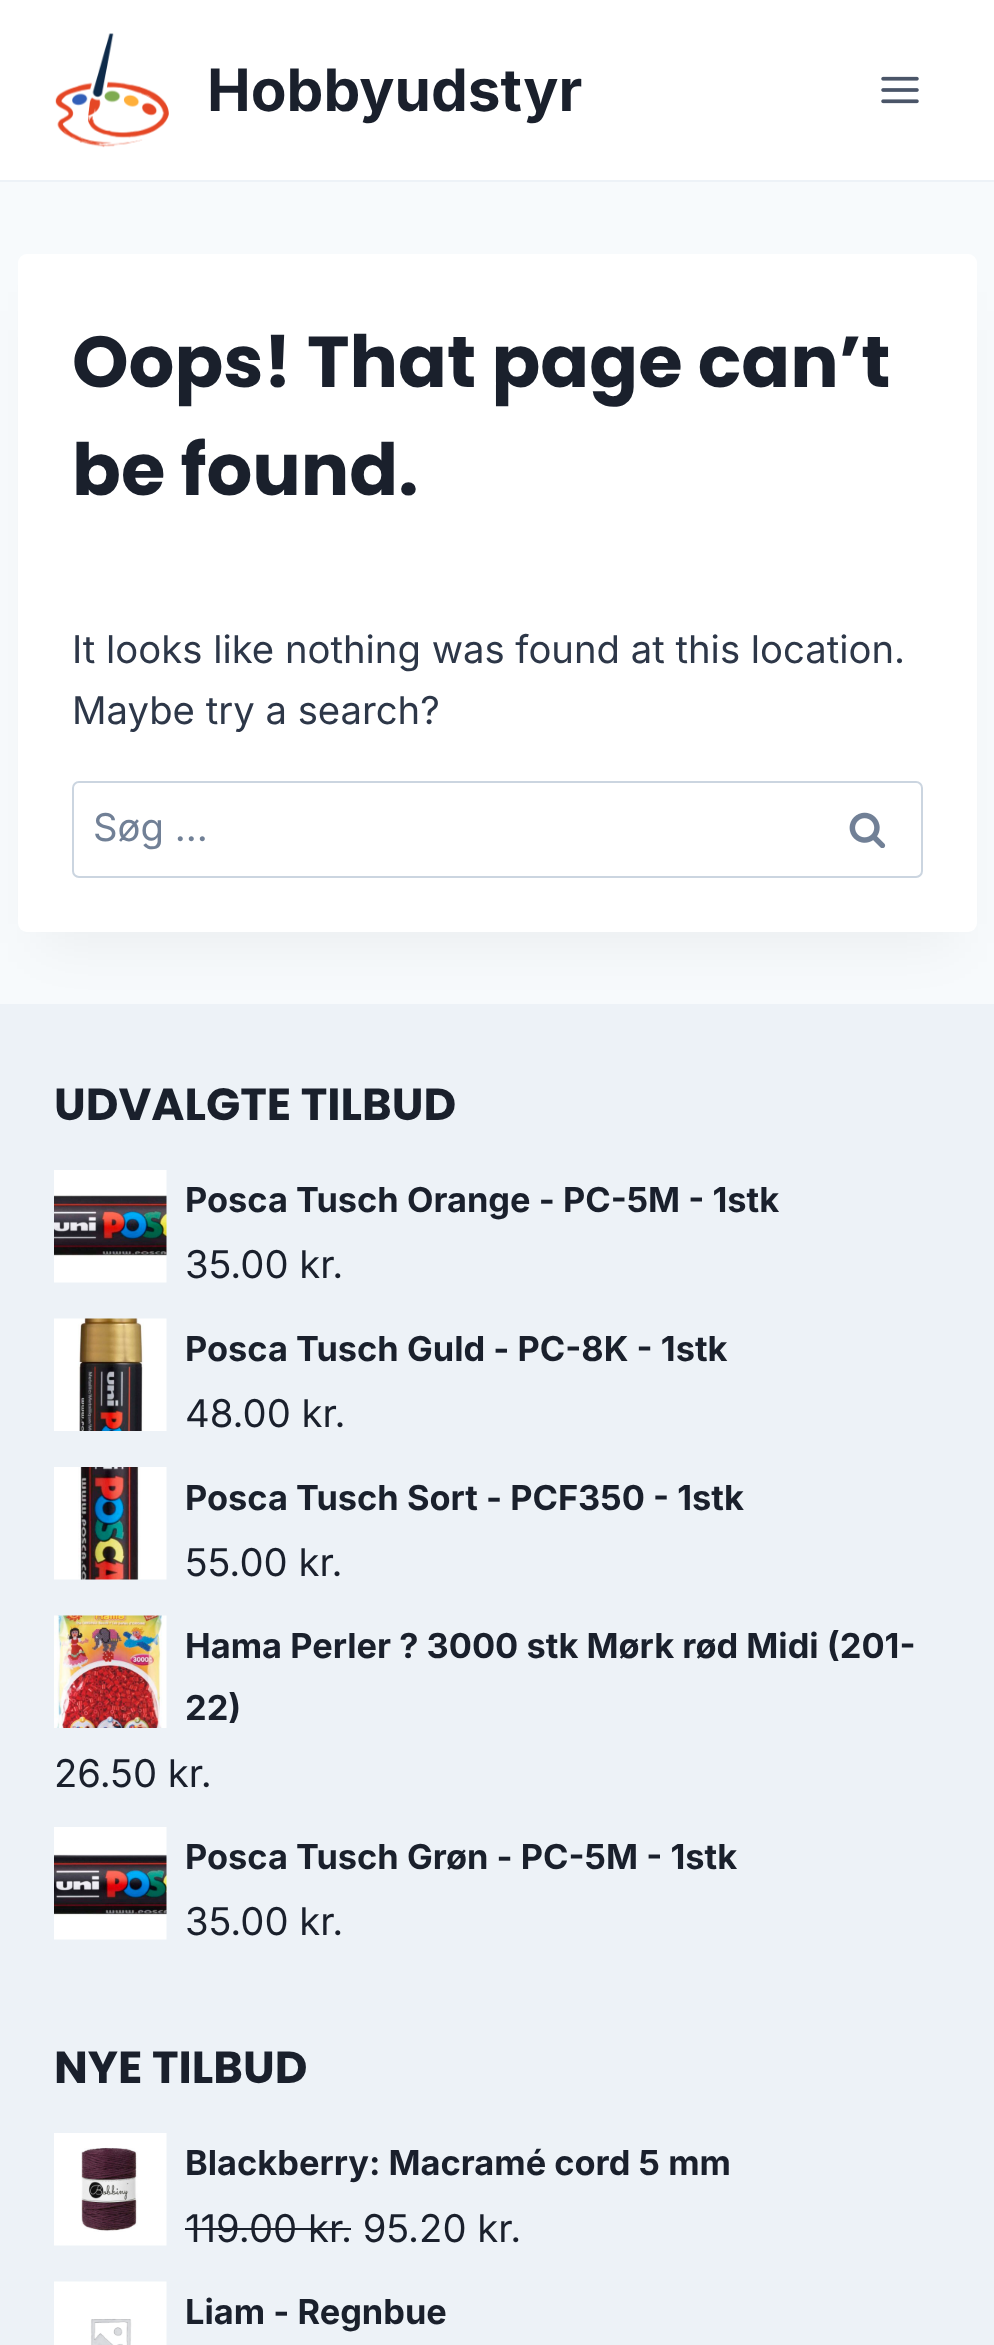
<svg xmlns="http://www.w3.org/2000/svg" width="994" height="2345">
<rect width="100%" height="100%" fill="#f7fafc"/>
<rect width="994" height="180" fill="#fff"/>
<rect y="180" width="994" height="2" fill="#edf2f7"/>
<image x="55" y="33" width="114" height="115" href="media/1.png"/>
<text x="207" y="111" style="font-family:Inter;font-size:58.5px;font-weight:bold;fill:#1a202c">Hobbyudstyr</text>
<image x="881" y="76" width="38" height="28" href="media/2.png"/>
<rect y="1004" width="994" height="1341" fill="#edf2f7"/>
<rect x="41" y="311" width="913" height="632" fill="#0000000d" filter="blur(28px)"/>
<rect x="18" y="254" width="959" height="678" rx="9" fill="#fff"/>
<text x="72" y="387" style="font-family:Poppins;font-size:72px;font-weight:bold;fill:#1a202c">Oops! That page can’t</text>
<text x="72" y="495" style="font-family:Poppins;font-size:72px;font-weight:bold;fill:#1a202c">be found.</text>
<text x="72" y="663" style="font-family:Inter;font-size:38.25px;fill:#2d3748">It looks like nothing was found at this location.</text>
<text x="72" y="724" style="font-family:Inter;font-size:38.25px;fill:#2d3748">Maybe try a search?</text>
<rect x="73" y="782" width="849" height="95" rx="6" fill="none" stroke="#cbd5e0" stroke-width="2"/>
<text x="93" y="841" style="font-family:Inter;font-size:38.25px;fill:#718096">Søg …</text>
<image x="849" y="812" width="37" height="36" href="media/3.png"/>
<text x="54" y="1120" style="font-family:Poppins;font-size:45px;font-weight:bold;fill:#1a202c">UDVALGTE TILBUD</text>
<image x="54" y="1170" width="113" height="113" href="media/4.png"/>
<text x="185" y="1212" style="font-family:Inter;font-size:34.4px;font-weight:bold;fill:#1a202c">Posca Tusch Orange - PC-5M - 1stk</text>
<text x="185" y="1278" style="font-family:Inter;font-size:38.25px;fill:#1a202c">35.00 kr.</text>
<image x="54" y="1318" width="113" height="113" href="media/5.png"/>
<text x="185" y="1361" style="font-family:Inter;font-size:34.4px;font-weight:bold;fill:#1a202c">Posca Tusch Guld - PC-8K - 1stk</text>
<text x="185" y="1427" style="font-family:Inter;font-size:38.25px;fill:#1a202c">48.00 kr.</text>
<image x="54" y="1467" width="113" height="113" href="media/6.png"/>
<text x="185" y="1510" style="font-family:Inter;font-size:34.4px;font-weight:bold;fill:#1a202c">Posca Tusch Sort - PCF350 - 1stk</text>
<text x="185" y="1576" style="font-family:Inter;font-size:38.25px;fill:#1a202c">55.00 kr.</text>
<image x="54" y="1615" width="113" height="113" href="media/7.png"/>
<text x="185" y="1658" style="font-family:Inter;font-size:34.4px;font-weight:bold;fill:#1a202c">Hama Perler ? 3000 stk Mørk rød Midi (201-</text>
<text x="185" y="1720" style="font-family:Inter;font-size:34.4px;font-weight:bold;fill:#1a202c">22)</text>
<text x="54" y="1787" style="font-family:Inter;font-size:38.25px;fill:#1a202c">26.50 kr.</text>
<image x="54" y="1827" width="113" height="113" href="media/8.png"/>
<text x="185" y="1869" style="font-family:Inter;font-size:34.4px;font-weight:bold;fill:#1a202c">Posca Tusch Grøn - PC-5M - 1stk</text>
<text x="185" y="1935" style="font-family:Inter;font-size:38.25px;fill:#1a202c">35.00 kr.</text>
<text x="54" y="2083" style="font-family:Poppins;font-size:45px;font-weight:bold;fill:#1a202c">NYE TILBUD</text>
<image x="54" y="2133" width="113" height="113" href="media/9.png"/>
<text x="185" y="2175" style="font-family:Inter;font-size:34.4px;font-weight:bold;fill:#1a202c">Blackberry: Macramé cord 5 mm</text>
<text x="185" y="2242" style="font-family:Inter;font-size:38.25px;fill:#1a202c">119.00 kr. 95.20 kr.</text>
<rect x="185" y="2228" width="166" height="2" fill="#1a202c"/>
<image x="54" y="2281" width="113" height="64" href="media/10.png"/>
<text x="185" y="2324" style="font-family:Inter;font-size:34.4px;font-weight:bold;fill:#1a202c">Liam - Regnbue</text>
</svg>
